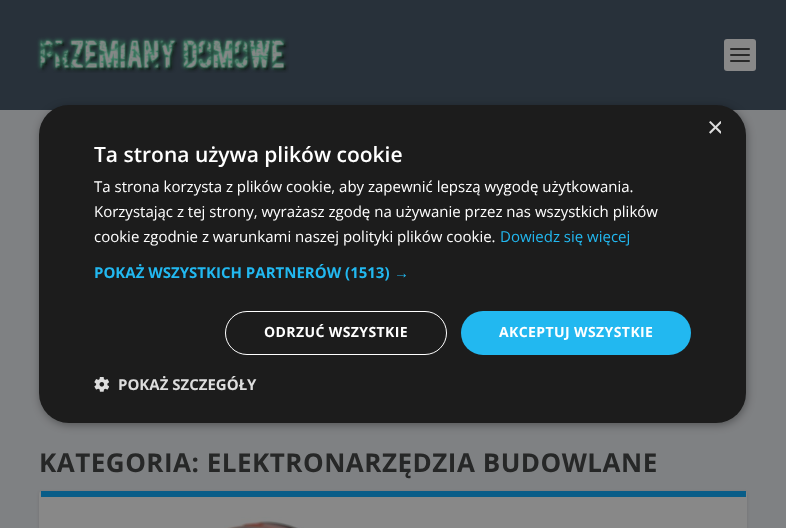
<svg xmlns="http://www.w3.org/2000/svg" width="786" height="528">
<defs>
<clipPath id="clip1"><rect x="706" y="121" width="15" height="15"/></clipPath>
</defs>
<rect width="100%" height="100%" fill="#7f8183"/>
<rect width="786" height="110" fill="#28313a"/>
<rect x="40" y="107" width="707" height="318" rx="30" fill="#00000059" filter="blur(4px)"/>
<rect x="39" y="105" width="707" height="318" rx="30" fill="#1c1c1c"/>
<g clip-path="url(#clip1)">
<text x="707" y="137" style="font-family:Liberation Sans;font-size:29px;fill:#ddd">×</text>
</g>
<text x="94" y="162" style="font-family:Open Sans;font-size:21px;font-weight:600;fill:#fff">Ta strona używa plików cookie</text>
<text x="94" y="192" style="font-family:Open Sans;font-size:15px;fill:#fff">Ta strona korzysta z plików cookie, aby zapewnić lepszą wygodę użytkowania.</text>
<text x="94" y="217" style="font-family:Open Sans;font-size:15px;fill:#fff">Korzystając z tej strony, wyrażasz zgodę na używanie przez nas wszystkich plików</text>
<text x="94" y="242" style="font-family:Open Sans;font-size:15px;fill:#fff">cookie zgodnie z warunkami naszej polityki plików cookie.</text>
<text x="500" y="242" style="font-family:Open Sans;font-size:15px;fill:#22b8f0">Dowiedz się więcej</text>
<text x="94" y="278" style="font-family:Open Sans;font-size:15px;font-weight:bold;fill:#22b8f0">POKAŻ WSZYSTKICH PARTNERÓW (1513)</text>
<text x="394" y="278" style="font-family:Liberation Sans;font-size:15px;font-weight:bold;fill:#22b8f0">→</text>
<rect x="225.5" y="311.5" width="221" height="43" rx="21.5" fill="none" stroke="#fff"/>
<text x="264" y="337" style="font-family:Open Sans;font-size:14px;font-weight:bold;letter-spacing:0.4px;fill:#fff">ODRZUĆ WSZYSTKIE</text>
<rect x="461" y="311" width="230" height="44" rx="22" fill="#22b8f0"/>
<text x="499" y="337" style="font-family:Open Sans;font-size:14px;font-weight:bold;letter-spacing:0.4px;fill:#fff">AKCEPTUJ WSZYSTKIE</text>
<image x="94" y="377" width="15" height="15" href="media/1.png"/>
<text x="118" y="390" style="font-family:Open Sans;font-size:15px;font-weight:bold;fill:#ddd">POKAŻ SZCZEGÓŁY</text>
<image x="36" y="36" width="253" height="37" href="media/2.png"/>
<rect x="724" y="39" width="32" height="32" rx="3" fill="#888"/>
<rect x="730" y="48" width="20" height="2" rx="1" fill="#292929"/>
<rect x="730" y="54" width="20" height="2" rx="1" fill="#292929"/>
<rect x="730" y="60" width="20" height="2" rx="1" fill="#292929"/>
<text x="39" y="472" style="font-family:Open Sans;font-size:26px;font-weight:bold;letter-spacing:0.5px;fill:#262727">KATEGORIA: ELEKTRONARZĘDZIA BUDOWLANE</text>
<rect x="39" y="492" width="708" height="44" rx="3" fill="#0909091a" filter="blur(1.5px)"/>
<rect x="39" y="491" width="708" height="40" rx="3" fill="#888"/>
<rect x="41" y="491" width="705" height="6" fill="#095d88"/>
<image x="224" y="517" width="80" height="11" href="media/3.png"/>
</svg>
